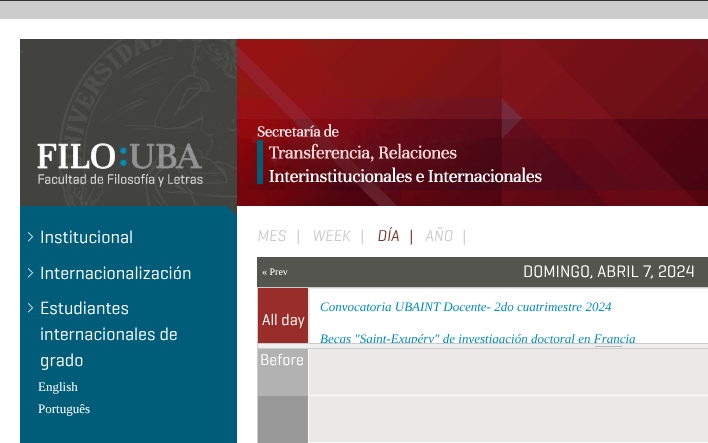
<svg xmlns="http://www.w3.org/2000/svg" width="708" height="443">
<defs>
<clipPath id="clip1"><rect x="258" y="288" width="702" height="55"/></clipPath>
</defs>
<rect width="100%" height="100%" fill="#ccc"/>
<rect x="0.5" y="-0.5" width="707" height="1" fill="none" stroke="#333"/>
<rect y="19" width="708" height="424" fill="#fff"/>
<image x="20" y="39" width="688" height="176" href="media/1.png"/>
<text x="20" y="52" style="font-family:Liberation Serif;font-size:13px;fill:#008cba">.</text>
<rect x="20" y="215" width="217" height="228" fill="#005d7a"/>
<image x="28" y="232" width="6" height="10" href="media/2.png"/>
<text x="40" y="243" style="font-family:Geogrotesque;font-size:18px;fill:#fff">Institucional</text>
<image x="28" y="268" width="6" height="10" href="media/2.png"/>
<text x="40" y="279" style="font-family:Geogrotesque;font-size:18px;fill:#fff">Internacionalización</text>
<image x="28" y="303" width="6" height="10" href="media/2.png"/>
<text x="40" y="314" style="font-family:Geogrotesque;font-size:18px;fill:#fff">Estudiantes</text>
<text x="40" y="340" style="font-family:Geogrotesque;font-size:18px;fill:#fff">internacionales de</text>
<text x="40" y="366" style="font-family:Geogrotesque;font-size:18px;fill:#fff">grado</text>
<text x="38" y="391" style="font-family:Liberation Serif;font-size:13px;fill:#fff">English</text>
<text x="38" y="413" style="font-family:Liberation Serif;font-size:13px;fill:#fff">Português</text>
<text x="257" y="241" style="font-family:Geogrotesque;font-size:16px;font-style:italic;fill:#ccc">MES</text>
<text x="296" y="241" style="font-family:Geogrotesque;font-size:16px;font-style:italic;fill:#ccc">|</text>
<text x="312" y="241" style="font-family:Geogrotesque;font-size:16px;font-style:italic;fill:#ccc">WEEK</text>
<text x="360" y="241" style="font-family:Geogrotesque;font-size:16px;font-style:italic;fill:#ccc">|</text>
<text x="377" y="241" style="font-family:Geogrotesque;font-size:16px;font-style:italic;fill:#73342a">DÍA</text>
<text x="409" y="241" style="font-family:Geogrotesque;font-size:16px;font-style:italic;fill:#73342a">|</text>
<text x="425" y="241" style="font-family:Geogrotesque;font-size:16px;font-style:italic;fill:#ccc">AÑO</text>
<text x="462" y="241" style="font-family:Geogrotesque;font-size:16px;font-style:italic;fill:#ccc">|</text>
<rect x="257" y="257" width="451" height="30" fill="#54554f"/>
<text x="262" y="275" style="font-family:Liberation Serif;font-size:10px;fill:#fff">« Prev</text>
<text x="523" y="277" style="font-family:Geogrotesque;font-size:17px;fill:#fff">DOMINGO, ABRIL 7, 2024</text>
<rect x="257" y="287" width="451" height="1" fill="#ccc"/>
<rect x="257" y="343" width="451" height="1" fill="#ccc"/>
<rect x="257" y="287" width="1" height="57" fill="#ccc"/>
<rect x="258" y="288" width="50" height="55" fill="#982d29"/>
<text x="262" y="325" style="font-family:Geogrotesque;font-size:16px;fill:#fff">All day</text>
<rect x="308" y="288" width="400" height="55" fill="#ebeae9"/>
<rect x="310" y="289" width="398" height="54" fill="#fff"/>
<text x="320" y="311" style="font-family:Liberation Serif;font-size:13px;font-style:italic;fill:#008cba">Convocatoria UBAINT Docente- 2do cuatrimestre 2024</text>
<g clip-path="url(#clip1)">
<text x="320" y="343" style="font-family:Liberation Serif;font-size:13px;font-style:italic;fill:#008cba">Becas "Saint-Exupéry" de investigación doctoral en Francia</text>
</g>
<rect x="257" y="344" width="451" height="4" fill="#eee"/>
<rect x="257" y="344" width="1" height="4" fill="#ccc"/>
<rect x="595" y="346" width="27" height="1" fill="#bbb"/>
<rect x="257" y="348" width="451" height="1" fill="#ccc"/>
<rect x="257" y="348" width="1" height="95" fill="#ccc"/>
<rect x="258" y="349" width="50" height="47" fill="#b2b2b2"/>
<text x="260" y="365" style="font-family:Geogrotesque;font-size:16px;fill:#fff">Before</text>
<rect x="258" y="396" width="50" height="47" fill="#999"/>
<rect x="309" y="349" width="399" height="93" fill="#eae9e8"/>
<rect x="308" y="349" width="1" height="94" fill="#fcfcfb"/>
<rect x="309" y="395" width="399" height="1" fill="#fcfcfb"/>
<rect x="309" y="442" width="399" height="1" fill="#fcfcfb"/>
</svg>
